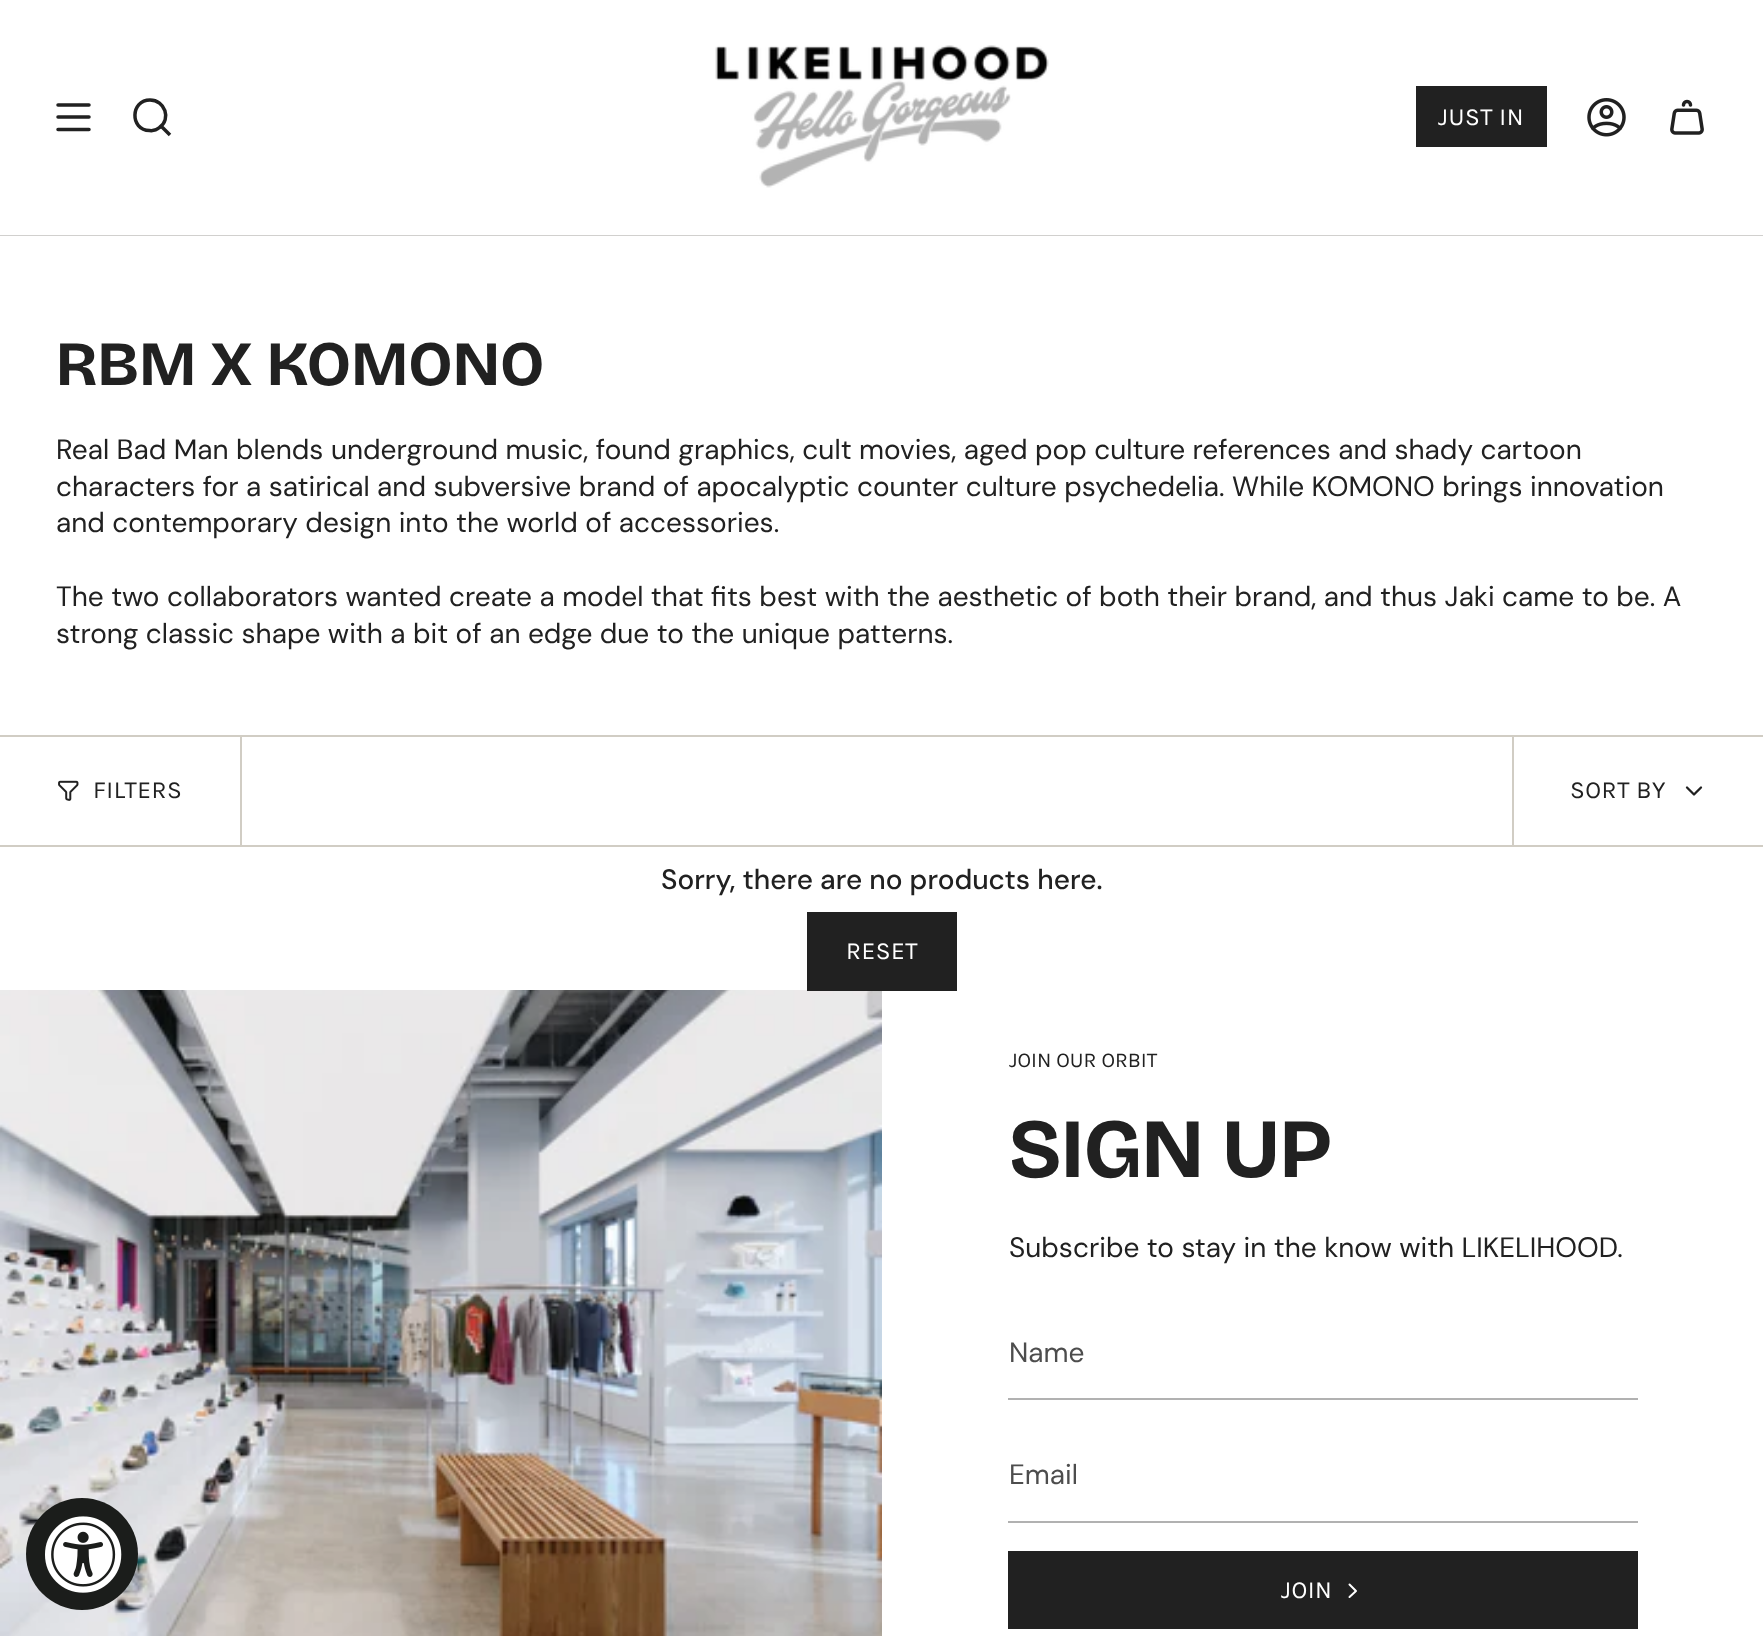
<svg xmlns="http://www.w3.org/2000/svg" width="1763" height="1636">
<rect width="100%" height="100%" fill="#fff"/>
<path d="M58 105h31m-31 12h31m-31 12.5h31" fill="none" stroke="#212121" stroke-width="3.5" stroke-linecap="round" stroke-linejoin="round"/>
<path d="M150 100c15 0 21.5 19 9.5 27.5c-3 2.5-6.5 3.5-10 3c-20-.5-19-30.5 .5-30.5zm11 26l9 9" fill="none" stroke="#212121" stroke-width="3.5"/>
<image x="715" y="45" width="334" height="143" href="media/1.png"/>
<rect x="1416" y="86" width="131" height="61" fill="#212121"/>
<text x="1438" y="125" style="font-family:Karla;font-size:24.5px;letter-spacing:0.5px;fill:#fff">JUST IN</text>
<image x="1587" y="98" width="39" height="39" href="media/2.png"/>
<image x="1670" y="99" width="34" height="36" href="media/3.png"/>
<rect y="235" width="1763" height="1" fill="#d1d0ce"/>
<text x="56" y="385" style="font-family:Bricolage Grotesque;font-size:63px;font-weight:bold;fill:#212121">RBM X KOMONO</text>
<text x="56" y="459" style="font-family:DM Sans;font-size:28px;fill:#212121">Real Bad Man blends underground music, found graphics, cult movies, aged pop culture references and shady cartoon</text>
<text x="56" y="496" style="font-family:DM Sans;font-size:28px;fill:#212121">characters for a satirical and subversive brand of apocalyptic counter culture psychedelia. While KOMONO brings innovation</text>
<text x="56" y="532" style="font-family:DM Sans;font-size:28px;fill:#212121">and contemporary design into the world of accessories.</text>
<text x="56" y="606" style="font-family:DM Sans;font-size:28px;fill:#212121">The two collaborators wanted create a model that fits best with the aesthetic of both their brand, and thus Jaki came to be. A</text>
<text x="56" y="643" style="font-family:DM Sans;font-size:28px;fill:#212121">strong classic shape with a bit of an edge due to the unique patterns.</text>
<rect y="735" width="1763" height="2" fill="#d1cdc4"/>
<rect y="845" width="1763" height="2" fill="#d1cdc4"/>
<rect x="240" y="737" width="2" height="108" fill="#d1cdc4"/>
<image x="58" y="780" width="21" height="21" href="media/4.png"/>
<text x="93" y="798" style="font-family:Karla;font-size:24.5px;letter-spacing:0.5px;fill:#212121">FILTERS</text>
<rect x="1512" y="737" width="2" height="108" fill="#d1cdc4"/>
<text x="1570" y="798" style="font-family:Karla;font-size:24.5px;letter-spacing:0.5px;fill:#212121">SORT BY</text>
<path d="M1687 787.5l7 7l7-7" fill="none" stroke="#212121" stroke-width="2.3" stroke-linecap="round" stroke-linejoin="round"/>
<text x="661" y="889" style="font-family:DM Sans;font-size:28px;font-weight:500;fill:#212121">Sorry, there are no products here.</text>
<image x="0" y="990" width="882" height="646" href="media/6.png"/>
<rect x="807" y="912" width="150" height="79" fill="#212121"/>
<text x="846" y="959" style="font-family:Karla;font-size:24.5px;letter-spacing:0.5px;fill:#fff">RESET</text>
<circle cx="82" cy="1554" r="56" fill="#1b1d1b"/>
<image x="45" y="1516" width="77" height="77" href="media/5.png"/>
<text x="1009" y="1067" style="font-family:Karla;font-size:21px;fill:#212121">JOIN OUR ORBIT</text>
<text x="1009" y="1177" style="font-family:'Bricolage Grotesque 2';font-size:84px;font-weight:bold;fill:#212121">SIGN UP</text>
<text x="1009" y="1257" style="font-family:DM Sans;font-size:28px;fill:#212121">Subscribe to stay in the know with LIKELIHOOD.</text>
<rect x="1008" y="1398" width="630" height="2" fill="#b1b1b1"/>
<text x="1009" y="1362" style="font-family:DM Sans;font-size:28px;fill:#4d4d4d">Name</text>
<rect x="1008" y="1521" width="630" height="2" fill="#b1b1b1"/>
<text x="1009" y="1484" style="font-family:DM Sans;font-size:28px;fill:#4d4d4d">Email</text>
<rect x="1008" y="1551" width="630" height="78" fill="#212121"/>
<text x="1281" y="1598" style="font-family:Karla;font-size:24.5px;letter-spacing:0.5px;fill:#fff">JOIN</text>
<path d="M1349.5 1584.5l6.5 6.5l-6.5 6" fill="none" stroke="#fff" stroke-width="2" stroke-linecap="round" stroke-linejoin="round"/>
</svg>
